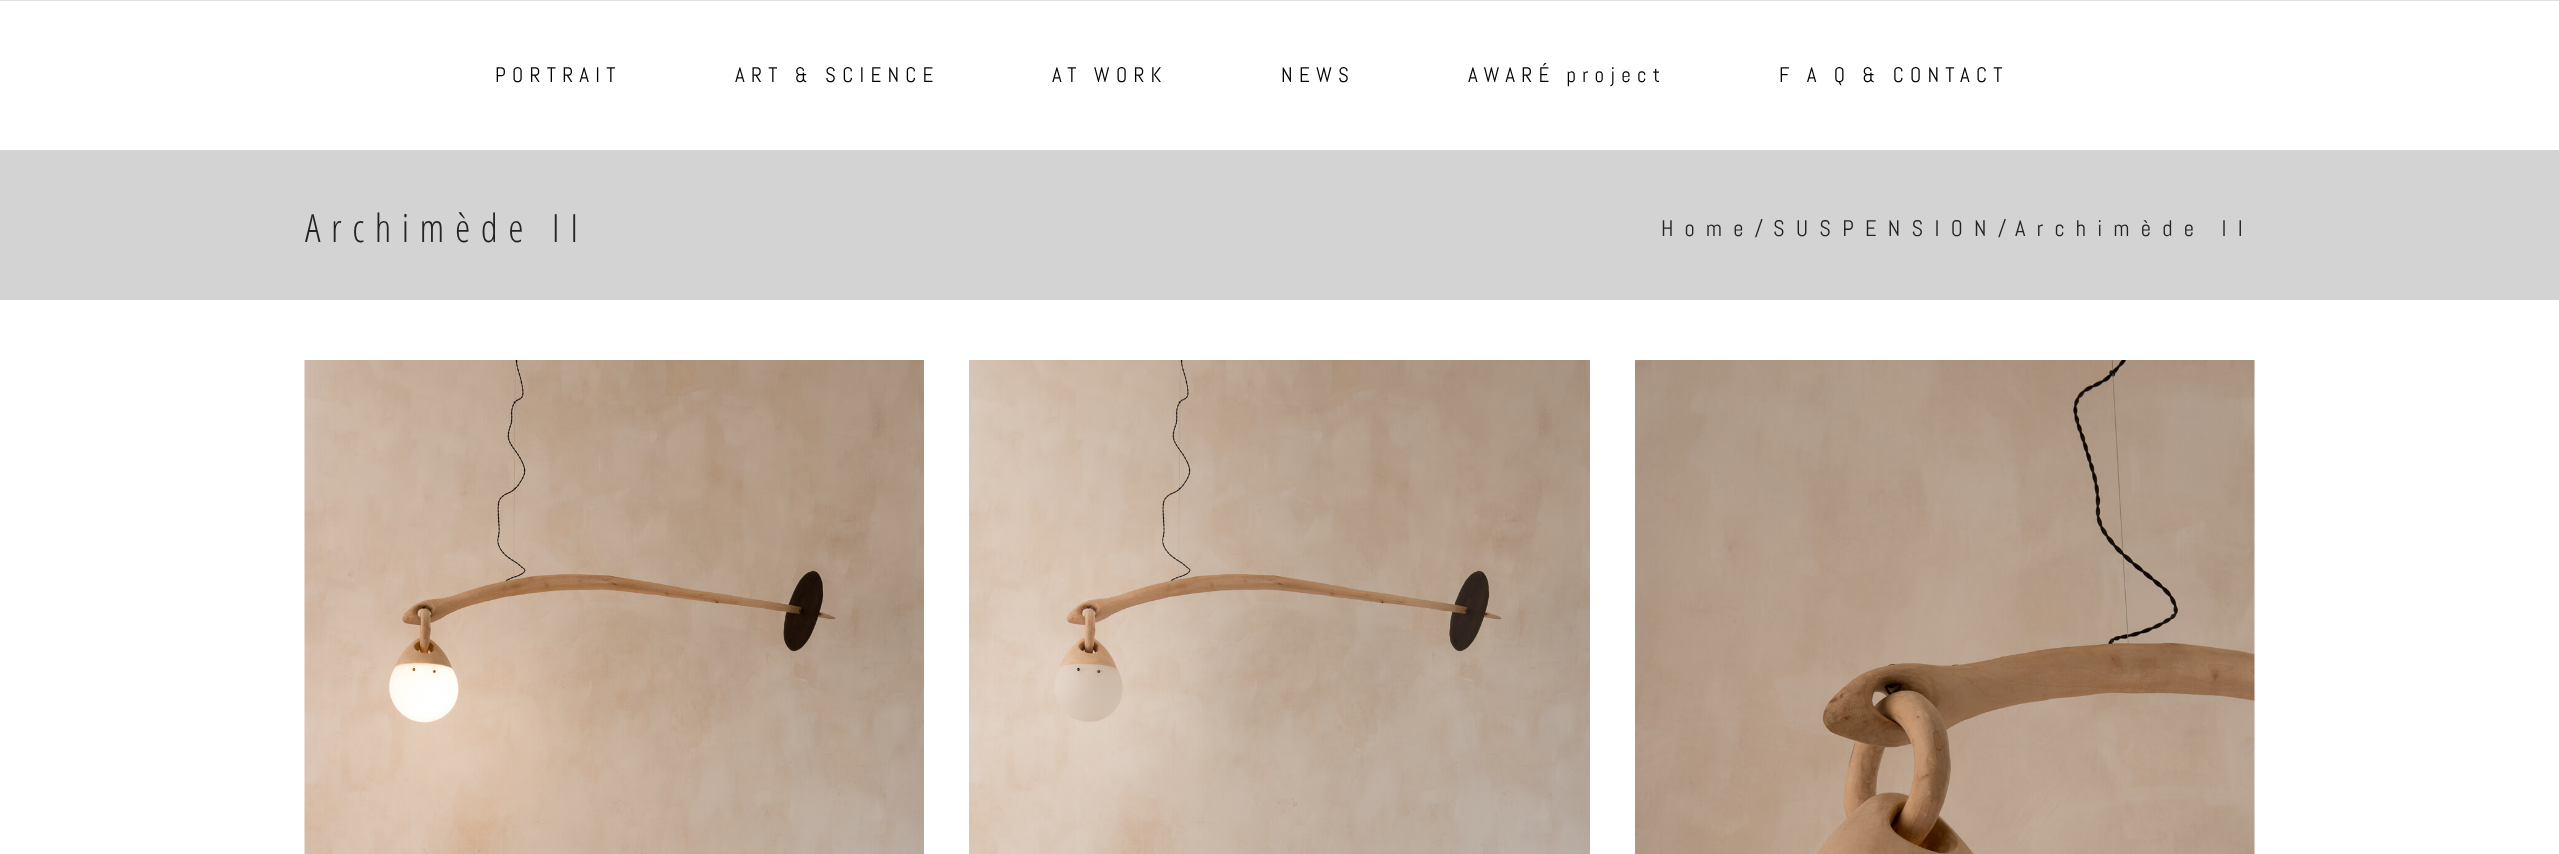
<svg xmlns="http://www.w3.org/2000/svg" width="2559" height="854">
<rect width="100%" height="100%" fill="#fff"/>
<rect width="2559" height="1" fill="#e1e1e1"/>
<text x="495" y="82" style="font-family:Abel;font-size:21px;letter-spacing:6.25px;fill:#000">PORTRAIT</text>
<text x="735" y="82" style="font-family:Abel;font-size:21px;letter-spacing:6.25px;fill:#000">ART &amp; SCIENCE</text>
<text x="1052" y="82" style="font-family:Abel;font-size:21px;letter-spacing:6.25px;fill:#000">AT WORK</text>
<text x="1281" y="82" style="font-family:Abel;font-size:21px;letter-spacing:6.25px;fill:#000">NEWS</text>
<text x="1468" y="82" style="font-family:Abel;font-size:21px;letter-spacing:6.25px;fill:#000">AWARÉ project</text>
<text x="1779" y="82" style="font-family:Abel;font-size:21px;letter-spacing:6.25px;fill:#000">F A Q &amp; CONTACT</text>
<rect y="150" width="2559" height="150" fill="#d3d3d3"/>
<text x="305" y="242" style="font-family:Open Sans Condensed;font-size:39px;font-weight:300;letter-spacing:10.5px;fill:#232323">Archimède II</text>
<text x="1661" y="236" style="font-family:Abel;font-size:22.5px;letter-spacing:11.25px;fill:#232323">Home/</text>
<text x="1773" y="236" style="font-family:Abel;font-size:22.5px;letter-spacing:11.25px;fill:#232323">SUSPENSION/</text>
<text x="2015" y="236" style="font-family:Abel;font-size:22.5px;letter-spacing:11.25px;fill:#232323">Archimède II</text>
<image x="304" y="360" width="620" height="494" href="media/1.png"/>
<image x="969" y="360" width="621" height="494" href="media/2.png"/>
<image x="1635" y="360" width="620" height="494" href="media/3.png"/>
</svg>
